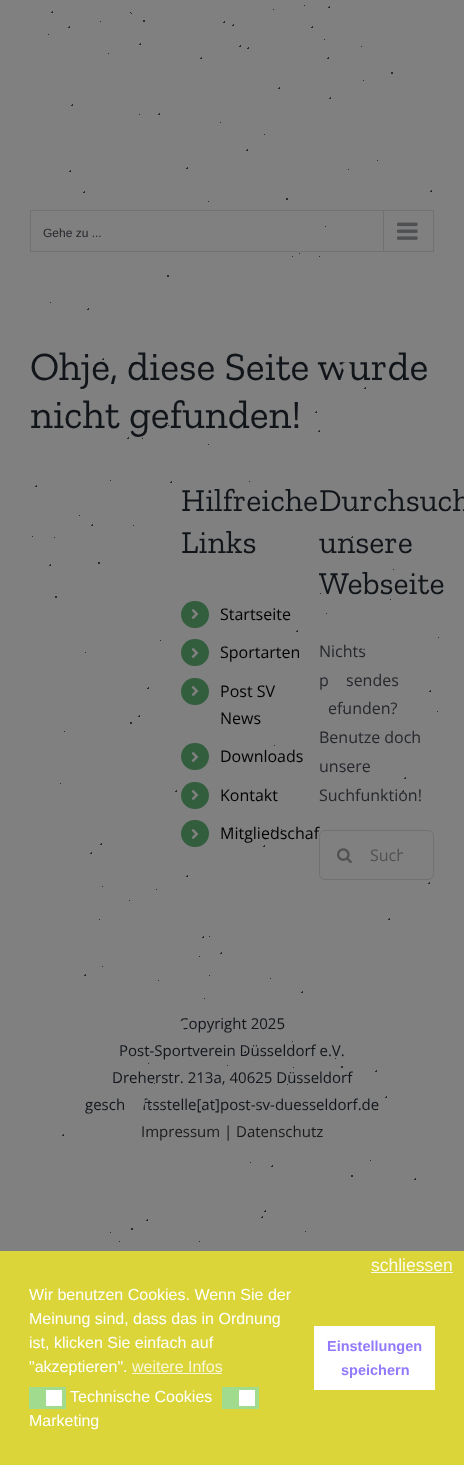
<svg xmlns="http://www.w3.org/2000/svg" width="464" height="1465">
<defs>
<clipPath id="clip1"><rect x="370" y="844" width="33" height="22"/></clipPath>
</defs>
<rect width="100%" height="100%" fill="#808080"/>
<rect x="51" y="11" width="2" height="2" fill="#2b2b2b" filter="blur(0.5px)"/>
<rect x="50" y="10" width="2" height="2" fill="#808080"/>
<rect x="130" y="12" width="1" height="1" fill="#2b2b2b" filter="blur(0.5px)"/>
<rect x="273" y="9" width="1" height="1" fill="#2b2b2b" filter="blur(0.5px)"/>
<rect x="304" y="5" width="1" height="1" fill="#2b2b2b" filter="blur(0.5px)"/>
<rect x="328" y="6" width="2" height="2" fill="#2b2b2b" filter="blur(0.5px)"/>
<rect x="327" y="5" width="2" height="2" fill="#808080"/>
<rect x="131" y="13" width="1" height="1" fill="#2b2b2b" filter="blur(0.5px)"/>
<rect x="68" y="26" width="2" height="2" fill="#2b2b2b" filter="blur(0.5px)"/>
<rect x="67" y="25" width="2" height="2" fill="#808080"/>
<rect x="100" y="21" width="1" height="1" fill="#2b2b2b" filter="blur(0.5px)"/>
<rect x="143" y="20" width="2" height="2" fill="#2b2b2b" filter="blur(0.5px)"/>
<rect x="223" y="21" width="2" height="2" fill="#2b2b2b" filter="blur(0.5px)"/>
<rect x="222" y="20" width="2" height="2" fill="#808080"/>
<rect x="232" y="24" width="2" height="2" fill="#2b2b2b" filter="blur(0.5px)"/>
<rect x="231" y="23" width="2" height="2" fill="#808080"/>
<rect x="311" y="26" width="2" height="2" fill="#2b2b2b" filter="blur(0.5px)"/>
<rect x="310" y="25" width="2" height="2" fill="#808080"/>
<rect x="48" y="34" width="1" height="1" fill="#2b2b2b" filter="blur(0.5px)"/>
<rect x="139" y="43" width="2" height="2" fill="#2b2b2b" filter="blur(0.5px)"/>
<rect x="138" y="42" width="2" height="2" fill="#808080"/>
<rect x="239" y="45" width="2" height="2" fill="#2b2b2b" filter="blur(0.5px)"/>
<rect x="238" y="44" width="2" height="2" fill="#808080"/>
<rect x="247" y="47" width="2" height="2" fill="#2b2b2b" filter="blur(0.5px)"/>
<rect x="246" y="46" width="2" height="2" fill="#808080"/>
<rect x="324" y="39" width="1" height="1" fill="#2b2b2b" filter="blur(0.5px)"/>
<rect x="361" y="46" width="1" height="1" fill="#2b2b2b" filter="blur(0.5px)"/>
<rect x="108" y="53" width="1" height="1" fill="#2b2b2b" filter="blur(0.5px)"/>
<rect x="200" y="57" width="2" height="2" fill="#2b2b2b" filter="blur(0.5px)"/>
<rect x="199" y="56" width="2" height="2" fill="#808080"/>
<rect x="327" y="57" width="2" height="2" fill="#2b2b2b" filter="blur(0.5px)"/>
<rect x="326" y="56" width="2" height="2" fill="#808080"/>
<rect x="391" y="72" width="2" height="2" fill="#2b2b2b" filter="blur(0.5px)"/>
<rect x="363" y="80" width="1" height="1" fill="#2b2b2b" filter="blur(0.5px)"/>
<rect x="278" y="87" width="2" height="2" fill="#2b2b2b" filter="blur(0.5px)"/>
<rect x="277" y="86" width="2" height="2" fill="#808080"/>
<rect x="329" y="97" width="2" height="2" fill="#2b2b2b" filter="blur(0.5px)"/>
<rect x="328" y="96" width="2" height="2" fill="#808080"/>
<rect x="71" y="104" width="2" height="2" fill="#2b2b2b" filter="blur(0.5px)"/>
<rect x="70" y="103" width="2" height="2" fill="#808080"/>
<rect x="139" y="114" width="1" height="1" fill="#2b2b2b" filter="blur(0.5px)"/>
<rect x="158" y="113" width="2" height="2" fill="#2b2b2b" filter="blur(0.5px)"/>
<rect x="157" y="112" width="2" height="2" fill="#808080"/>
<rect x="220" y="122" width="1" height="1" fill="#2b2b2b" filter="blur(0.5px)"/>
<rect x="264" y="134" width="1" height="1" fill="#2b2b2b" filter="blur(0.5px)"/>
<rect x="246" y="149" width="2" height="2" fill="#2b2b2b" filter="blur(0.5px)"/>
<rect x="245" y="148" width="2" height="2" fill="#808080"/>
<rect x="377" y="160" width="1" height="1" fill="#2b2b2b" filter="blur(0.5px)"/>
<rect x="69" y="170" width="2" height="2" fill="#2b2b2b" filter="blur(0.5px)"/>
<rect x="68" y="169" width="2" height="2" fill="#808080"/>
<rect x="186" y="167" width="2" height="2" fill="#2b2b2b" filter="blur(0.5px)"/>
<rect x="185" y="166" width="2" height="2" fill="#808080"/>
<rect x="348" y="169" width="1" height="1" fill="#2b2b2b" filter="blur(0.5px)"/>
<rect x="83" y="191" width="2" height="2" fill="#2b2b2b" filter="blur(0.5px)"/>
<rect x="82" y="190" width="2" height="2" fill="#808080"/>
<rect x="430" y="190" width="2" height="2" fill="#2b2b2b" filter="blur(0.5px)"/>
<rect x="429" y="189" width="2" height="2" fill="#808080"/>
<rect x="208" y="201" width="1" height="1" fill="#2b2b2b" filter="blur(0.5px)"/>
<rect x="286" y="198" width="2" height="2" fill="#2b2b2b" filter="blur(0.5px)"/>
<rect x="30.5" y="210.5" width="403" height="41" fill="none" stroke="#717171"/>
<rect x="325" y="226" width="1" height="1" fill="#2b2b2b" filter="blur(0.5px)"/>
<text x="43" y="237" style="font-family:Liberation Sans;font-size:12px;fill:#25272c">Gehe zu ...</text>
<rect x="383" y="211" width="1" height="40" fill="#717171"/>
<image x="397" y="222" width="21" height="18" href="media/1.png"/>
<text x="30" y="380" style="font-family:Zilla Slab;font-size:40px;fill:#11151a">Ohje, diese Seite wurde</text>
<text x="30" y="428" style="font-family:Zilla Slab;font-size:40px;fill:#11151a">nicht gefunden!</text>
<text x="181" y="511" style="font-family:Zilla Slab;font-size:32px;fill:#11151a">Hilfreiche</text>
<text x="181" y="553" style="font-family:Zilla Slab;font-size:32px;fill:#11151a">Links</text>
<rect x="181" y="601" width="28" height="27" rx="13.5" fill="#335e3e"/>
<image x="191" y="609" width="8" height="10" href="media/2.png"/>
<text x="220" y="620" style="font-family:Open Sans;font-size:16px;fill:#010301">Startseite</text>
<rect x="181" y="639" width="28" height="27" rx="13.5" fill="#335e3e"/>
<image x="191" y="648" width="8" height="10" href="media/2.png"/>
<text x="220" y="658" style="font-family:Open Sans;font-size:16px;fill:#010301">Sportarten</text>
<rect x="181" y="678" width="28" height="27" rx="13.5" fill="#335e3e"/>
<image x="191" y="686" width="8" height="10" href="media/2.png"/>
<text x="220" y="697" style="font-family:Open Sans;font-size:16px;fill:#010301">Post SV</text>
<text x="220" y="724" style="font-family:Open Sans;font-size:16px;fill:#010301">News</text>
<rect x="181" y="743" width="28" height="27" rx="13.5" fill="#335e3e"/>
<image x="191" y="752" width="8" height="10" href="media/2.png"/>
<text x="220" y="762" style="font-family:Open Sans;font-size:16px;fill:#010301">Downloads</text>
<rect x="181" y="782" width="28" height="27" rx="13.5" fill="#335e3e"/>
<image x="191" y="790" width="8" height="10" href="media/2.png"/>
<text x="220" y="801" style="font-family:Open Sans;font-size:16px;fill:#010301">Kontakt</text>
<rect x="181" y="820" width="28" height="27" rx="13.5" fill="#335e3e"/>
<image x="191" y="829" width="8" height="10" href="media/2.png"/>
<text x="220" y="839" style="font-family:Open Sans;font-size:16px;fill:#010301">Mitgliedschaf</text>
<text x="319" y="511" style="font-family:Zilla Slab;font-size:32px;fill:#11151a">Durchsuch</text>
<text x="319" y="553" style="font-family:Zilla Slab;font-size:32px;fill:#11151a">unsere</text>
<text x="319" y="594" style="font-family:Zilla Slab;font-size:32px;fill:#11151a">Webseite</text>
<text x="319" y="657" style="font-family:Open Sans;font-size:16px;fill:#25272c">Nichts</text>
<text x="319" y="686" style="font-family:Open Sans;font-size:16px;fill:#25272c">p</text>
<text x="346" y="686" style="font-family:Open Sans;font-size:16px;fill:#25272c">sendes</text>
<text x="328" y="714" style="font-family:Open Sans;font-size:16px;fill:#25272c">efunden?</text>
<text x="319" y="743" style="font-family:Open Sans;font-size:16px;fill:#25272c">Benutze doch</text>
<text x="319" y="772" style="font-family:Open Sans;font-size:16px;fill:#25272c">unsere</text>
<text x="319" y="801" style="font-family:Open Sans;font-size:16px;fill:#25272c">Suchfunktion!</text>
<rect x="319.5" y="830.5" width="114" height="49" rx="5.5" fill="none" stroke="#717171"/>
<image x="337" y="848" width="15" height="16" href="media/3.png"/>
<g clip-path="url(#clip1)">
<text x="370" y="861" style="font-family:Open Sans;font-size:16px;fill:#4f5052">Such</text>
</g>
<text x="179" y="1029" style="font-family:Open Sans;font-size:15px;fill:#11151a">Copyright 2025</text>
<text x="119" y="1056" style="font-family:Open Sans;font-size:15px;fill:#11151a">Post-Sportverein Düsseldorf e.V.</text>
<text x="112" y="1083" style="font-family:Open Sans;font-size:15px;fill:#11151a">Dreherstr. 213a, 40625 Düsseldorf</text>
<text x="85" y="1110" style="font-family:Open Sans;font-size:15px;fill:#11151a">gesch</text>
<text x="142" y="1110" style="font-family:Open Sans;font-size:15px;fill:#11151a">ftsstelle[at]post-sv-duesseldorf.de</text>
<text x="141" y="1137" style="font-family:Open Sans;font-size:15px;fill:#1a1a1a">Impressum</text>
<text x="224" y="1137" style="font-family:Open Sans;font-size:15px;fill:#11151a">|</text>
<text x="236" y="1137" style="font-family:Open Sans;font-size:15px;fill:#1a1a1a">Datenschutz</text>
<rect x="292" y="256" width="1" height="1" fill="#2b2b2b" filter="blur(0.5px)"/>
<rect x="299" y="253" width="1" height="1" fill="#2b2b2b" filter="blur(0.5px)"/>
<rect x="319" y="256" width="1" height="1" fill="#2b2b2b" filter="blur(0.5px)"/>
<rect x="167" y="275" width="2" height="2" fill="#2b2b2b" filter="blur(0.5px)"/>
<rect x="50" y="302" width="1" height="1" fill="#2b2b2b" filter="blur(0.5px)"/>
<rect x="87" y="308" width="2" height="2" fill="#2b2b2b" filter="blur(0.5px)"/>
<rect x="86" y="307" width="2" height="2" fill="#808080"/>
<rect x="102" y="358" width="2" height="2" fill="#2b2b2b" filter="blur(0.5px)"/>
<rect x="101" y="357" width="2" height="2" fill="#808080"/>
<circle cx="414" cy="359" r="4" fill="#808080"/>
<circle cx="346.5" cy="366.5" r="4.5" fill="#808080"/>
<rect x="364" y="387" width="2" height="2" fill="#2b2b2b" filter="blur(0.5px)"/>
<rect x="363" y="386" width="2" height="2" fill="#808080"/>
<rect x="315" y="411" width="2" height="2" fill="#2b2b2b" filter="blur(0.5px)"/>
<rect x="314" y="410" width="2" height="2" fill="#808080"/>
<rect x="66" y="417" width="1" height="1" fill="#2b2b2b" filter="blur(0.5px)"/>
<rect x="65" y="416" width="1" height="1" fill="#808080"/>
<rect x="256" y="417" width="1" height="1" fill="#2b2b2b" filter="blur(0.5px)"/>
<rect x="168" y="425" width="1" height="1" fill="#2b2b2b" filter="blur(0.5px)"/>
<rect x="167" y="424" width="1" height="1" fill="#808080"/>
<rect x="318" y="430" width="2" height="2" fill="#2b2b2b" filter="blur(0.5px)"/>
<rect x="317" y="429" width="2" height="2" fill="#808080"/>
<rect x="127" y="437" width="2" height="2" fill="#2b2b2b" filter="blur(0.5px)"/>
<rect x="126" y="436" width="2" height="2" fill="#808080"/>
<rect x="142" y="438" width="1" height="1" fill="#2b2b2b" filter="blur(0.5px)"/>
<rect x="208" y="444" width="1" height="1" fill="#2b2b2b" filter="blur(0.5px)"/>
<rect x="35" y="485" width="2" height="2" fill="#2b2b2b" filter="blur(0.5px)"/>
<rect x="34" y="484" width="2" height="2" fill="#808080"/>
<rect x="110" y="480" width="1" height="1" fill="#2b2b2b" filter="blur(0.5px)"/>
<rect x="170" y="481" width="2" height="2" fill="#2b2b2b" filter="blur(0.5px)"/>
<rect x="169" y="480" width="2" height="2" fill="#808080"/>
<rect x="249" y="481" width="1" height="1" fill="#2b2b2b" filter="blur(0.5px)"/>
<rect x="355" y="509" width="1" height="1" fill="#2b2b2b" filter="blur(0.5px)"/>
<rect x="354" y="508" width="1" height="1" fill="#808080"/>
<rect x="79" y="515" width="1" height="1" fill="#2b2b2b" filter="blur(0.5px)"/>
<rect x="91" y="524" width="2" height="2" fill="#2b2b2b" filter="blur(0.5px)"/>
<rect x="90" y="523" width="2" height="2" fill="#808080"/>
<rect x="133" y="525" width="1" height="1" fill="#2b2b2b" filter="blur(0.5px)"/>
<rect x="32" y="536" width="1" height="1" fill="#2b2b2b" filter="blur(0.5px)"/>
<rect x="54" y="537" width="1" height="1" fill="#2b2b2b" filter="blur(0.5px)"/>
<rect x="351" y="536" width="2" height="2" fill="#2b2b2b" filter="blur(0.5px)"/>
<rect x="350" y="535" width="2" height="2" fill="#808080"/>
<rect x="340" y="542" width="2" height="2" fill="#2b2b2b" filter="blur(0.5px)"/>
<rect x="339" y="541" width="2" height="2" fill="#808080"/>
<rect x="49" y="564" width="2" height="2" fill="#2b2b2b" filter="blur(0.5px)"/>
<rect x="48" y="563" width="2" height="2" fill="#808080"/>
<rect x="98" y="562" width="2" height="2" fill="#2b2b2b" filter="blur(0.5px)"/>
<rect x="393" y="569" width="1" height="1" fill="#2b2b2b" filter="blur(0.5px)"/>
<rect x="55" y="596" width="2" height="2" fill="#2b2b2b" filter="blur(0.5px)"/>
<rect x="320" y="593" width="1" height="1" fill="#2b2b2b" filter="blur(0.5px)"/>
<rect x="390" y="599" width="1" height="1" fill="#2b2b2b" filter="blur(0.5px)"/>
<rect x="326" y="613" width="1" height="1" fill="#2b2b2b" filter="blur(0.5px)"/>
<rect x="296" y="630" width="2" height="2" fill="#2b2b2b" filter="blur(0.5px)"/>
<rect x="295" y="629" width="2" height="2" fill="#808080"/>
<rect x="160" y="640" width="1" height="1" fill="#2b2b2b" filter="blur(0.5px)"/>
<rect x="438" y="637" width="1" height="1" fill="#2b2b2b" filter="blur(0.5px)"/>
<rect x="362" y="648" width="2" height="1" fill="#808080"/>
<rect x="85" y="652" width="1" height="1" fill="#2b2b2b" filter="blur(0.5px)"/>
<rect x="147" y="687" width="2" height="2" fill="#2b2b2b" filter="blur(0.5px)"/>
<rect x="146" y="686" width="2" height="2" fill="#808080"/>
<rect x="429" y="690" width="2" height="2" fill="#2b2b2b" filter="blur(0.5px)"/>
<rect x="428" y="689" width="2" height="2" fill="#808080"/>
<rect x="138" y="715" width="2" height="2" fill="#2b2b2b" filter="blur(0.5px)"/>
<rect x="137" y="714" width="2" height="2" fill="#808080"/>
<rect x="222" y="717" width="1" height="1" fill="#2b2b2b" filter="blur(0.5px)"/>
<rect x="221" y="716" width="1" height="1" fill="#808080"/>
<rect x="343" y="709" width="2" height="2" fill="#2b2b2b" filter="blur(0.5px)"/>
<rect x="342" y="708" width="2" height="2" fill="#808080"/>
<rect x="437" y="711" width="1" height="1" fill="#2b2b2b" filter="blur(0.5px)"/>
<rect x="130" y="722" width="2" height="2" fill="#2b2b2b" filter="blur(0.5px)"/>
<rect x="64" y="731" width="1" height="1" fill="#2b2b2b" filter="blur(0.5px)"/>
<rect x="274" y="745" width="1" height="1" fill="#2b2b2b" filter="blur(0.5px)"/>
<rect x="404" y="777" width="2" height="2" fill="#2b2b2b" filter="blur(0.5px)"/>
<rect x="403" y="776" width="2" height="2" fill="#808080"/>
<rect x="60" y="783" width="1" height="1" fill="#2b2b2b" filter="blur(0.5px)"/>
<rect x="175" y="790" width="2" height="2" fill="#2b2b2b" filter="blur(0.5px)"/>
<rect x="174" y="789" width="2" height="2" fill="#808080"/>
<rect x="402" y="790" width="2" height="2" fill="#2b2b2b" filter="blur(0.5px)"/>
<rect x="401" y="789" width="2" height="2" fill="#808080"/>
<rect x="229" y="828" width="2" height="2" fill="#2b2b2b" filter="blur(0.5px)"/>
<rect x="271" y="829" width="2" height="2" fill="#2b2b2b" filter="blur(0.5px)"/>
<rect x="270" y="828" width="2" height="2" fill="#808080"/>
<rect x="281" y="829" width="1" height="1" fill="#2b2b2b" filter="blur(0.5px)"/>
<rect x="100" y="843" width="2" height="2" fill="#2b2b2b" filter="blur(0.5px)"/>
<rect x="99" y="842" width="2" height="2" fill="#808080"/>
<rect x="263" y="845" width="2" height="2" fill="#2b2b2b" filter="blur(0.5px)"/>
<rect x="262" y="844" width="2" height="2" fill="#808080"/>
<rect x="90" y="852" width="2" height="2" fill="#2b2b2b" filter="blur(0.5px)"/>
<rect x="89" y="851" width="2" height="2" fill="#808080"/>
<rect x="186" y="875" width="2" height="2" fill="#2b2b2b" filter="blur(0.5px)"/>
<rect x="185" y="874" width="2" height="2" fill="#808080"/>
<rect x="102" y="886" width="1" height="1" fill="#2b2b2b" filter="blur(0.5px)"/>
<rect x="156" y="889" width="1" height="1" fill="#2b2b2b" filter="blur(0.5px)"/>
<rect x="428" y="882" width="2" height="2" fill="#2b2b2b" filter="blur(0.5px)"/>
<rect x="427" y="881" width="2" height="2" fill="#808080"/>
<rect x="129" y="900" width="1" height="1" fill="#2b2b2b" filter="blur(0.5px)"/>
<rect x="99" y="919" width="1" height="1" fill="#2b2b2b" filter="blur(0.5px)"/>
<rect x="388" y="918" width="2" height="2" fill="#2b2b2b" filter="blur(0.5px)"/>
<rect x="387" y="917" width="2" height="2" fill="#808080"/>
<rect x="202" y="936" width="2" height="2" fill="#2b2b2b" filter="blur(0.5px)"/>
<rect x="201" y="935" width="2" height="2" fill="#808080"/>
<rect x="209" y="936" width="1" height="1" fill="#2b2b2b" filter="blur(0.5px)"/>
<rect x="199" y="956" width="1" height="1" fill="#2b2b2b" filter="blur(0.5px)"/>
<rect x="220" y="952" width="2" height="2" fill="#2b2b2b" filter="blur(0.5px)"/>
<rect x="219" y="951" width="2" height="2" fill="#808080"/>
<rect x="102" y="966" width="1" height="1" fill="#2b2b2b" filter="blur(0.5px)"/>
<rect x="84" y="974" width="2" height="2" fill="#2b2b2b" filter="blur(0.5px)"/>
<rect x="83" y="973" width="2" height="2" fill="#808080"/>
<rect x="158" y="980" width="1" height="1" fill="#2b2b2b" filter="blur(0.5px)"/>
<rect x="209" y="975" width="1" height="1" fill="#2b2b2b" filter="blur(0.5px)"/>
<rect x="270" y="978" width="1" height="1" fill="#2b2b2b" filter="blur(0.5px)"/>
<rect x="301" y="991" width="2" height="2" fill="#2b2b2b" filter="blur(0.5px)"/>
<rect x="300" y="990" width="2" height="2" fill="#808080"/>
<rect x="204" y="998" width="1" height="1" fill="#2b2b2b" filter="blur(0.5px)"/>
<circle cx="176.5" cy="1026.5" r="7.5" fill="#808080"/>
<rect x="292" y="1041" width="1" height="1" fill="#2b2b2b" filter="blur(0.5px)"/>
<rect x="244" y="1051" width="2" height="2" fill="#2b2b2b" filter="blur(0.5px)"/>
<rect x="243" y="1050" width="2" height="2" fill="#808080"/>
<rect x="335" y="1058" width="1" height="1" fill="#2b2b2b" filter="blur(0.5px)"/>
<rect x="148" y="1063" width="1" height="1" fill="#2b2b2b" filter="blur(0.5px)"/>
<rect x="227" y="1065" width="1" height="1" fill="#2b2b2b" filter="blur(0.5px)"/>
<rect x="293" y="1067" width="1" height="1" fill="#2b2b2b" filter="blur(0.5px)"/>
<rect x="341" y="1066" width="2" height="2" fill="#2b2b2b" filter="blur(0.5px)"/>
<rect x="375" y="1070" width="2" height="2" fill="#2b2b2b" filter="blur(0.5px)"/>
<rect x="374" y="1069" width="2" height="2" fill="#808080"/>
<rect x="154" y="1083" width="1" height="1" fill="#2b2b2b" filter="blur(0.5px)"/>
<rect x="153" y="1082" width="1" height="1" fill="#808080"/>
<rect x="287" y="1084" width="1" height="1" fill="#2b2b2b" filter="blur(0.5px)"/>
<circle cx="136" cy="1102" r="9" fill="#808080"/>
<rect x="385" y="1096" width="2" height="2" fill="#2b2b2b" filter="blur(0.5px)"/>
<rect x="384" y="1095" width="2" height="2" fill="#808080"/>
<rect x="150" y="1106" width="1" height="1" fill="#2b2b2b" filter="blur(0.5px)"/>
<rect x="149" y="1105" width="1" height="1" fill="#808080"/>
<rect x="62" y="1134" width="2" height="2" fill="#2b2b2b" filter="blur(0.5px)"/>
<rect x="61" y="1133" width="2" height="2" fill="#808080"/>
<rect x="250" y="1162" width="1" height="1" fill="#2b2b2b" filter="blur(0.5px)"/>
<rect x="271" y="1165" width="2" height="2" fill="#2b2b2b" filter="blur(0.5px)"/>
<rect x="270" y="1164" width="2" height="2" fill="#808080"/>
<rect x="370" y="1160" width="1" height="1" fill="#2b2b2b" filter="blur(0.5px)"/>
<rect x="351" y="1175" width="2" height="2" fill="#2b2b2b" filter="blur(0.5px)"/>
<rect x="414" y="1178" width="2" height="2" fill="#2b2b2b" filter="blur(0.5px)"/>
<rect x="413" y="1177" width="2" height="2" fill="#808080"/>
<rect x="264" y="1210" width="2" height="2" fill="#2b2b2b" filter="blur(0.5px)"/>
<rect x="263" y="1209" width="2" height="2" fill="#808080"/>
<rect x="146" y="1219" width="2" height="2" fill="#2b2b2b" filter="blur(0.5px)"/>
<rect x="145" y="1218" width="2" height="2" fill="#808080"/>
<rect x="261" y="1216" width="2" height="2" fill="#2b2b2b" filter="blur(0.5px)"/>
<rect x="260" y="1215" width="2" height="2" fill="#808080"/>
<rect x="110" y="1232" width="1" height="1" fill="#2b2b2b" filter="blur(0.5px)"/>
<rect x="131" y="1228" width="2" height="2" fill="#2b2b2b" filter="blur(0.5px)"/>
<rect x="305" y="1231" width="1" height="1" fill="#2b2b2b" filter="blur(0.5px)"/>
<rect x="119" y="1241" width="1" height="1" fill="#2b2b2b" filter="blur(0.5px)"/>
<rect x="199" y="1241" width="1" height="1" fill="#2b2b2b" filter="blur(0.5px)"/>
<rect y="1251" width="464" height="214" fill="#dbd539"/>
<text x="371" y="1271" style="font-family:Liberation Sans;font-size:17.5px;fill:#fbfbeb">schliessen</text>
<rect x="371" y="1272" width="82" height="1" fill="#fbfbeb"/>
<text x="29" y="1300" style="font-family:Liberation Sans;font-size:16px;fill:#fff">Wir benutzen Cookies. Wenn Sie der</text>
<text x="29" y="1324" style="font-family:Liberation Sans;font-size:16px;fill:#fff">Meinung sind, dass das in Ordnung</text>
<text x="29" y="1348" style="font-family:Liberation Sans;font-size:16px;fill:#fff">ist, klicken Sie einfach auf</text>
<text x="29" y="1372" style="font-family:Liberation Sans;font-size:16px;fill:#fff">"akzeptieren".</text>
<text x="132" y="1372" style="font-family:Liberation Sans;font-size:16px;fill:#f8f7d7">weitere Infos</text>
<rect x="132" y="1373" width="90" height="1" fill="#f8f7d7"/>
<rect x="29" y="1387" width="37" height="22" fill="#a0db8e"/>
<rect x="46" y="1390" width="16" height="16" fill="#fff"/>
<text x="70" y="1402" style="font-family:Liberation Sans;font-size:16px;fill:#fff">Technische Cookies</text>
<rect x="222" y="1387" width="37" height="22" fill="#a0db8e"/>
<rect x="239" y="1390" width="16" height="16" fill="#fff"/>
<text x="29" y="1426" style="font-family:Liberation Sans;font-size:16px;fill:#fff">Marketing</text>
<rect x="314" y="1326" width="121" height="64" fill="#fff"/>
<text x="327" y="1351" style="font-family:Liberation Sans;font-size:14.5px;font-weight:bold;fill:#937afc">Einstellungen</text>
<text x="341" y="1375" style="font-family:Liberation Sans;font-size:14.5px;font-weight:bold;fill:#937afc">speichern</text>
</svg>
